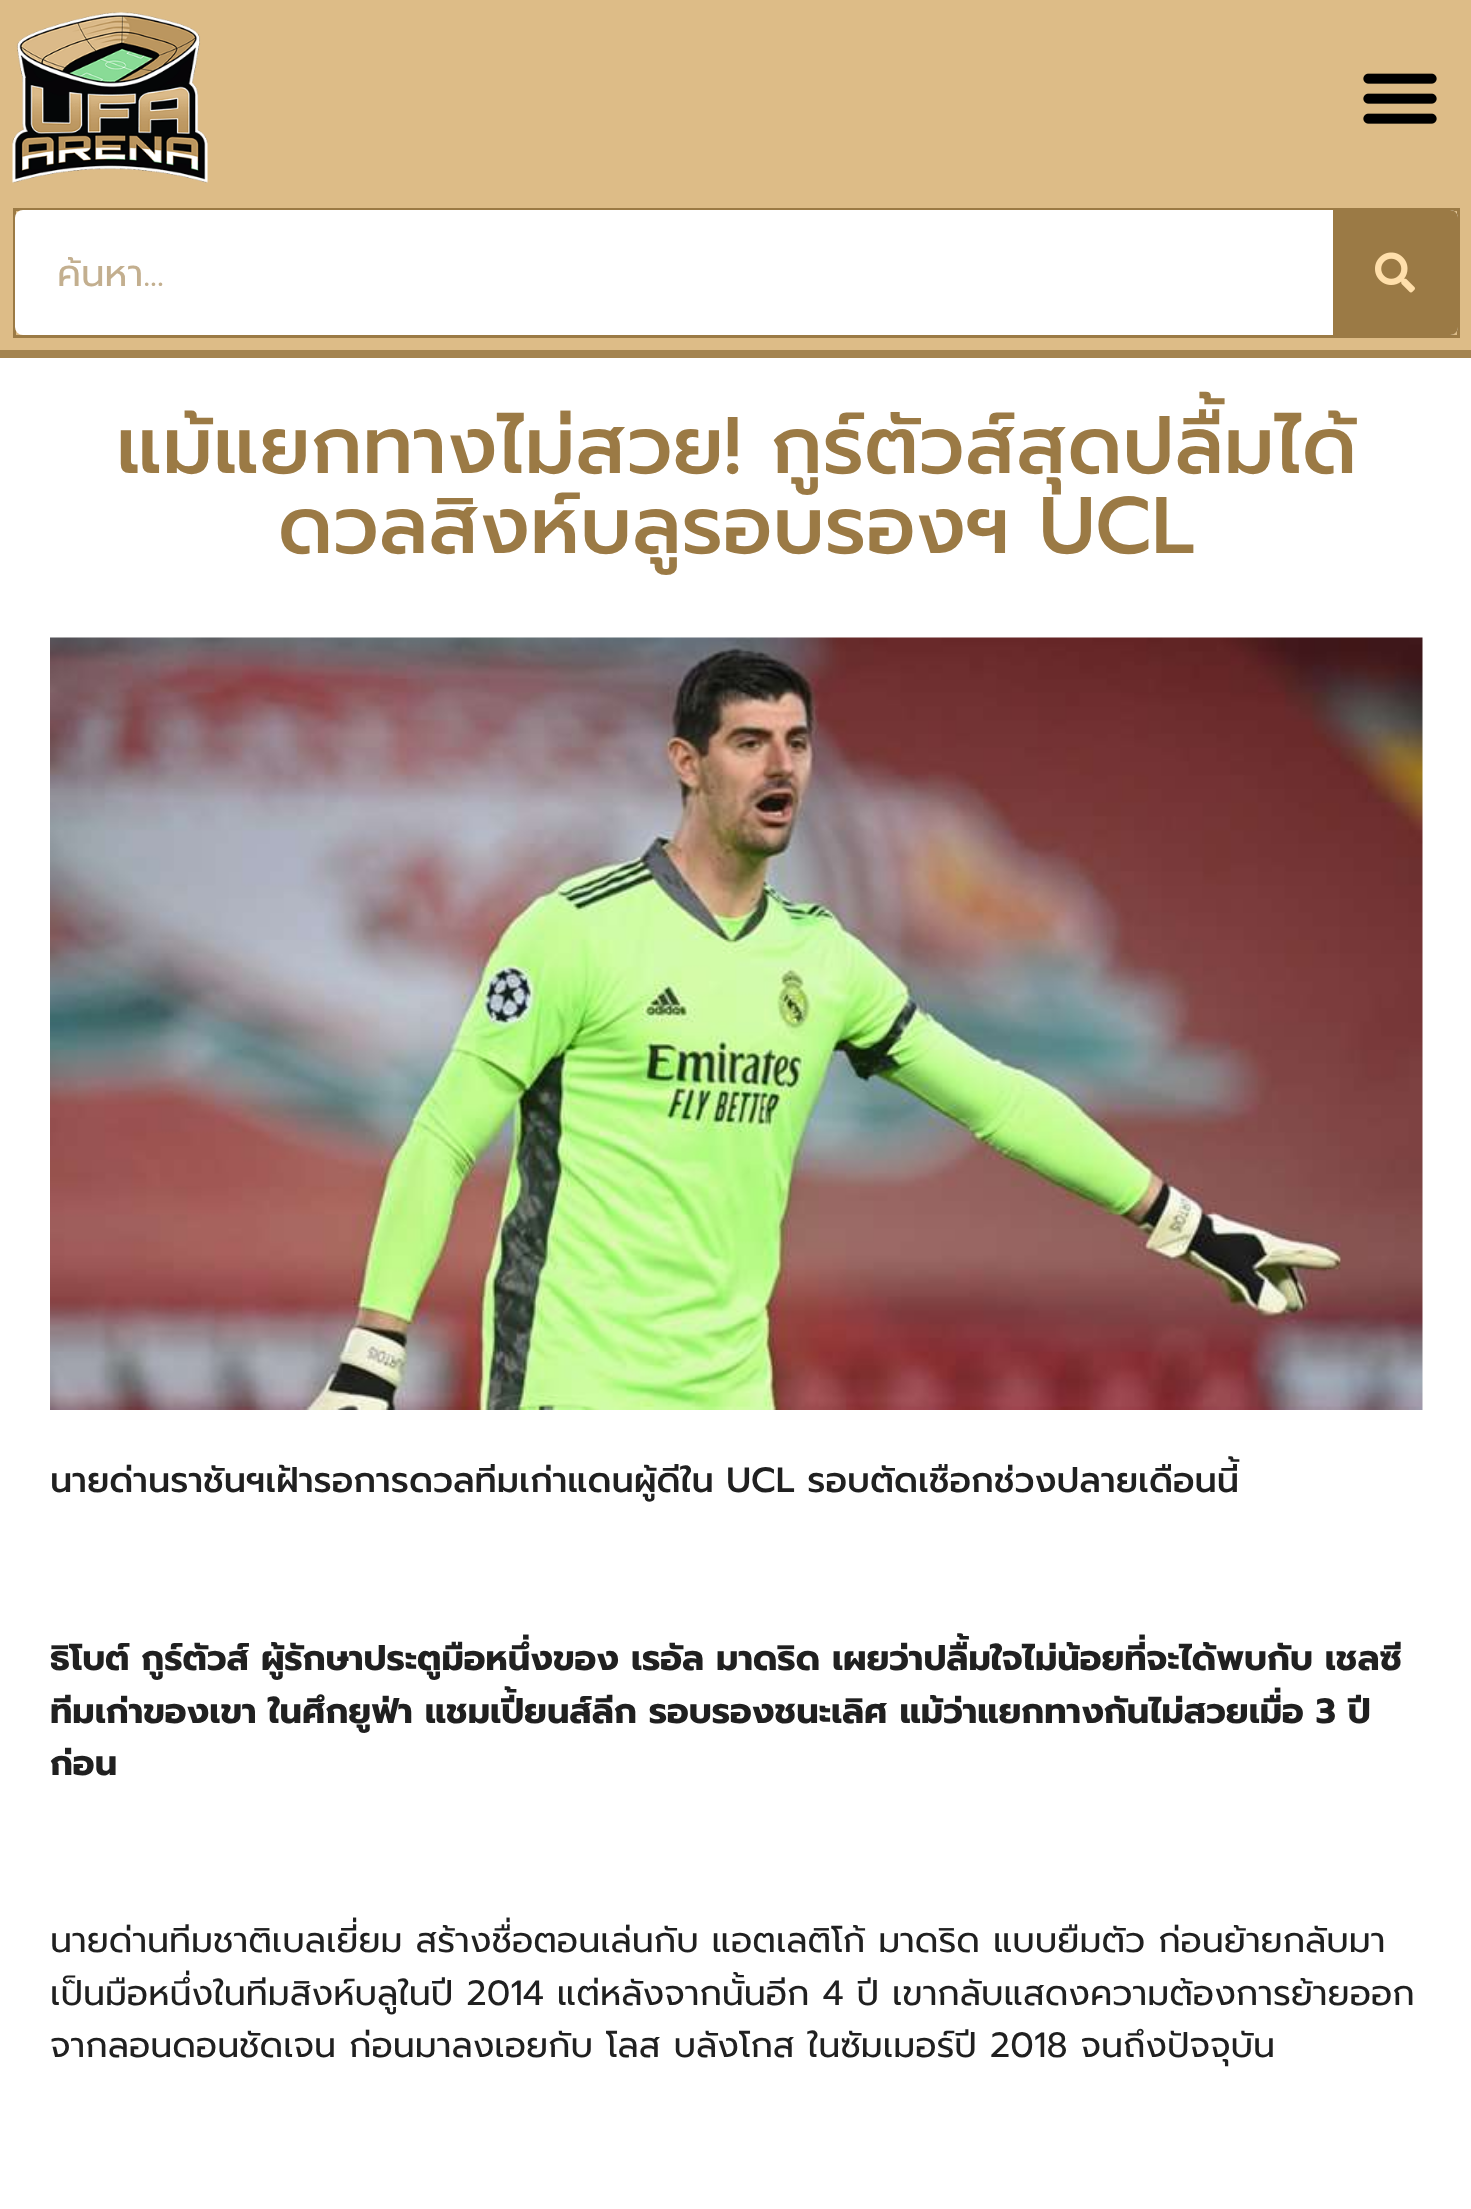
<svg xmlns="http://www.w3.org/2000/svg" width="1471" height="2209">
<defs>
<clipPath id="clip1"><rect x="58" y="245" width="1197" height="55"/></clipPath>
</defs>
<rect width="100%" height="100%" fill="#fff"/>
<rect width="1471" height="350" fill="#ddbc87"/>
<rect y="350" width="1471" height="8" fill="#a48450"/>
<image x="12" y="12" width="196" height="171" href="media/1.png"/>
<image x="1363" y="73" width="74" height="51" href="media/2.png"/>
<rect x="14.5" y="209.5" width="1444" height="127" fill="none" stroke="#9b7a45" stroke-width="3"/>
<rect x="15" y="210" width="1443" height="125" rx="8" fill="#fff"/>
<g clip-path="url(#clip1)">
<text x="57" y="286" style="font-family:Prompt;font-size:37.5px;fill:#c3af8f">ค้นหา...</text>
</g>
<path d="M1333 210h117c4.5 0 8 3.5 8 8v109c0 4.5-3.5 8-8 8h-117z" fill="#9b7a45"/>
<image x="1375" y="252" width="40" height="41" href="media/3.png"/>
<text x="116" y="473" style="font-family:Prompt;font-size:80px;font-weight:500;fill:#9b7a45">แม้แยกทางไม่สวย! กูร์ตัวส์สุดปลื้มได้</text>
<text x="278" y="553" style="font-family:Prompt;font-size:80px;font-weight:500;fill:#9b7a45">ดวลสิงห์บลูรอบรองฯ UCL</text>
<image x="50" y="637" width="1373" height="773" href="media/4.png"/>
<text x="50" y="1492" style="font-family:Prompt;font-size:35px;font-weight:500;fill:#202020">นายด่านราชันฯเฝ้ารอการดวลทีมเก่าแดนผู้ดีใน UCL รอบตัดเชือกช่วงปลายเดือนนี้</text>
<text x="50" y="1670" style="font-family:Prompt;font-size:35px;font-weight:bold;fill:#202020">ธิโบต์ กูร์ตัวส์ ผู้รักษาประตูมือหนึ่งของ เรอัล มาดริด เผยว่าปลื้มใจไม่น้อยที่จะได้พบกับ เชลซี</text>
<text x="50" y="1723" style="font-family:Prompt;font-size:35px;font-weight:bold;fill:#202020">ทีมเก่าของเขา ในศึกยูฟ่า แชมเปี้ยนส์ลีก รอบรองชนะเลิศ แม้ว่าแยกทางกันไม่สวยเมื่อ 3 ปี</text>
<text x="50" y="1775" style="font-family:Prompt;font-size:35px;font-weight:bold;fill:#202020">ก่อน</text>
<text x="50" y="1952" style="font-family:Prompt;font-size:35px;fill:#202020">นายด่านทีมชาติเบลเยี่ยม สร้างชื่อตอนเล่นกับ แอตเลติโก้ มาดริด แบบยืมตัว ก่อนย้ายกลับมา</text>
<text x="50" y="2005" style="font-family:Prompt;font-size:35px;fill:#202020">เป็นมือหนึ่งในทีมสิงห์บลูในปี 2014 แต่หลังจากนั้นอีก 4 ปี เขากลับแสดงความต้องการย้ายออก</text>
<text x="50" y="2057" style="font-family:Prompt;font-size:35px;fill:#202020">จากลอนดอนชัดเจน ก่อนมาลงเอยกับ โลส บลังโกส ในซัมเมอร์ปี 2018 จนถึงปัจจุบัน</text>
</svg>
